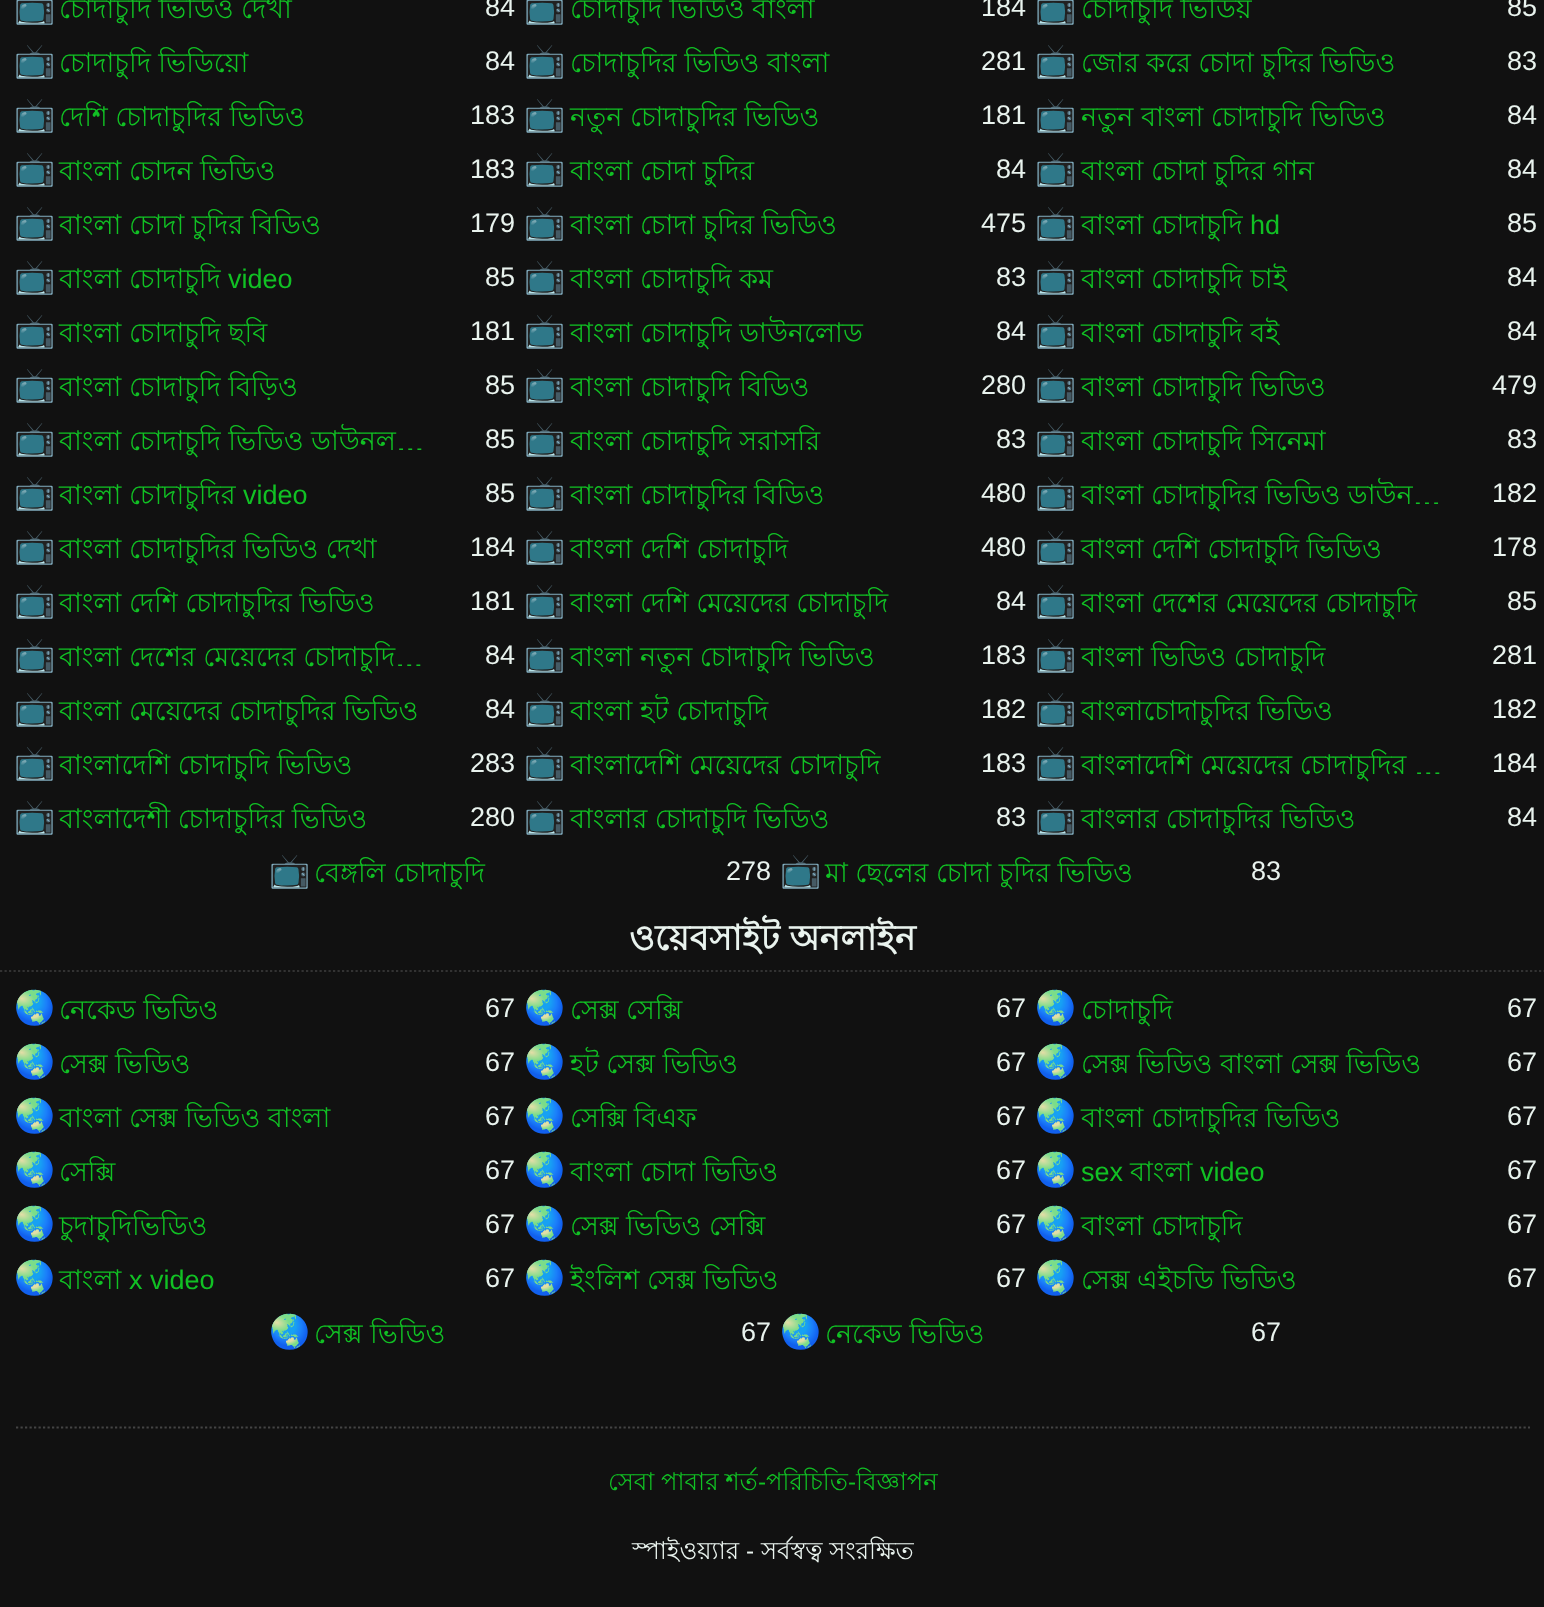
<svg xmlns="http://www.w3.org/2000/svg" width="1544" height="1607">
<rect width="100%" height="100%" fill="#111"/>
<text x="14" y="18" style="font-family:Noto Color Emoji;font-size:33px;fill:#9014d3">📺</text>
<text x="59" y="18" style="font-family:Lohit Bengali;font-size:27px;fill:#11c024">চোদাচুদি ভিডিও দেখা</text>
<text x="485" y="16" style="font-family:Liberation Sans;font-size:27px;fill:#e9f3ee">84</text>
<text x="524" y="18" style="font-family:Noto Color Emoji;font-size:33px;fill:#9014d3">📺</text>
<text x="570" y="18" style="font-family:Lohit Bengali;font-size:27px;fill:#11c024">চোদাচুদি ভিডিও বাংলা</text>
<text x="981" y="16" style="font-family:Liberation Sans;font-size:27px;fill:#e9f3ee">184</text>
<text x="1035" y="18" style="font-family:Noto Color Emoji;font-size:33px;fill:#9014d3">📺</text>
<text x="1081" y="18" style="font-family:Lohit Bengali;font-size:27px;fill:#11c024">চোদাচুদি ভিডিয়</text>
<text x="1507" y="16" style="font-family:Liberation Sans;font-size:27px;fill:#e9f3ee">85</text>
<text x="14" y="72" style="font-family:Noto Color Emoji;font-size:33px;fill:#9014d3">📺</text>
<text x="59" y="72" style="font-family:Lohit Bengali;font-size:27px;fill:#11c024">চোদাচুদি ভিডিয়ো</text>
<text x="485" y="70" style="font-family:Liberation Sans;font-size:27px;fill:#e9f3ee">84</text>
<text x="524" y="72" style="font-family:Noto Color Emoji;font-size:33px;fill:#9014d3">📺</text>
<text x="570" y="72" style="font-family:Lohit Bengali;font-size:27px;fill:#11c024">চোদাচুদির ভিডিও বাংলা</text>
<text x="981" y="70" style="font-family:Liberation Sans;font-size:27px;fill:#e9f3ee">281</text>
<text x="1035" y="72" style="font-family:Noto Color Emoji;font-size:33px;fill:#9014d3">📺</text>
<text x="1081" y="72" style="font-family:Lohit Bengali;font-size:27px;fill:#11c024">জোর করে চোদা চুদির ভিডিও</text>
<text x="1507" y="70" style="font-family:Liberation Sans;font-size:27px;fill:#e9f3ee">83</text>
<text x="14" y="126" style="font-family:Noto Color Emoji;font-size:33px;fill:#9014d3">📺</text>
<text x="59" y="126" style="font-family:Lohit Bengali;font-size:27px;fill:#11c024">দেশি চোদাচুদির ভিডিও</text>
<text x="470" y="124" style="font-family:Liberation Sans;font-size:27px;fill:#e9f3ee">183</text>
<text x="524" y="126" style="font-family:Noto Color Emoji;font-size:33px;fill:#9014d3">📺</text>
<text x="570" y="126" style="font-family:Lohit Bengali;font-size:27px;fill:#11c024">নতুন চোদাচুদির ভিডিও</text>
<text x="981" y="124" style="font-family:Liberation Sans;font-size:27px;fill:#e9f3ee">181</text>
<text x="1035" y="126" style="font-family:Noto Color Emoji;font-size:33px;fill:#9014d3">📺</text>
<text x="1081" y="126" style="font-family:Lohit Bengali;font-size:27px;fill:#11c024">নতুন বাংলা চোদাচুদি ভিডিও</text>
<text x="1507" y="124" style="font-family:Liberation Sans;font-size:27px;fill:#e9f3ee">84</text>
<text x="14" y="180" style="font-family:Noto Color Emoji;font-size:33px;fill:#9014d3">📺</text>
<text x="59" y="180" style="font-family:Lohit Bengali;font-size:27px;fill:#11c024">বাংলা চোদন ভিডিও</text>
<text x="470" y="178" style="font-family:Liberation Sans;font-size:27px;fill:#e9f3ee">183</text>
<text x="524" y="180" style="font-family:Noto Color Emoji;font-size:33px;fill:#9014d3">📺</text>
<text x="570" y="180" style="font-family:Lohit Bengali;font-size:27px;fill:#11c024">বাংলা চোদা চুদির</text>
<text x="996" y="178" style="font-family:Liberation Sans;font-size:27px;fill:#e9f3ee">84</text>
<text x="1035" y="180" style="font-family:Noto Color Emoji;font-size:33px;fill:#9014d3">📺</text>
<text x="1081" y="180" style="font-family:Lohit Bengali;font-size:27px;fill:#11c024">বাংলা চোদা চুদির গান</text>
<text x="1507" y="178" style="font-family:Liberation Sans;font-size:27px;fill:#e9f3ee">84</text>
<text x="14" y="234" style="font-family:Noto Color Emoji;font-size:33px;fill:#9014d3">📺</text>
<text x="59" y="234" style="font-family:Lohit Bengali;font-size:27px;fill:#11c024">বাংলা চোদা চুদির বিডিও</text>
<text x="470" y="232" style="font-family:Liberation Sans;font-size:27px;fill:#e9f3ee">179</text>
<text x="524" y="234" style="font-family:Noto Color Emoji;font-size:33px;fill:#9014d3">📺</text>
<text x="570" y="234" style="font-family:Lohit Bengali;font-size:27px;fill:#11c024">বাংলা চোদা চুদির ভিডিও</text>
<text x="981" y="232" style="font-family:Liberation Sans;font-size:27px;fill:#e9f3ee">475</text>
<text x="1035" y="234" style="font-family:Noto Color Emoji;font-size:33px;fill:#9014d3">📺</text>
<text x="1081" y="234" style="font-family:Lohit Bengali;font-size:27px;fill:#11c024">বাংলা চোদাচুদি</text>
<text x="1250" y="234" style="font-family:Liberation Sans;font-size:27px;fill:#11c024">hd</text>
<text x="1507" y="232" style="font-family:Liberation Sans;font-size:27px;fill:#e9f3ee">85</text>
<text x="14" y="288" style="font-family:Noto Color Emoji;font-size:33px;fill:#9014d3">📺</text>
<text x="59" y="288" style="font-family:Lohit Bengali;font-size:27px;fill:#11c024">বাংলা চোদাচুদি</text>
<text x="228" y="288" style="font-family:Liberation Sans;font-size:27px;fill:#11c024">video</text>
<text x="485" y="286" style="font-family:Liberation Sans;font-size:27px;fill:#e9f3ee">85</text>
<text x="524" y="288" style="font-family:Noto Color Emoji;font-size:33px;fill:#9014d3">📺</text>
<text x="570" y="288" style="font-family:Lohit Bengali;font-size:27px;fill:#11c024">বাংলা চোদাচুদি কম</text>
<text x="996" y="286" style="font-family:Liberation Sans;font-size:27px;fill:#e9f3ee">83</text>
<text x="1035" y="288" style="font-family:Noto Color Emoji;font-size:33px;fill:#9014d3">📺</text>
<text x="1081" y="288" style="font-family:Lohit Bengali;font-size:27px;fill:#11c024">বাংলা চোদাচুদি চাই</text>
<text x="1507" y="286" style="font-family:Liberation Sans;font-size:27px;fill:#e9f3ee">84</text>
<text x="14" y="342" style="font-family:Noto Color Emoji;font-size:33px;fill:#9014d3">📺</text>
<text x="59" y="342" style="font-family:Lohit Bengali;font-size:27px;fill:#11c024">বাংলা চোদাচুদি ছবি</text>
<text x="470" y="340" style="font-family:Liberation Sans;font-size:27px;fill:#e9f3ee">181</text>
<text x="524" y="342" style="font-family:Noto Color Emoji;font-size:33px;fill:#9014d3">📺</text>
<text x="570" y="342" style="font-family:Lohit Bengali;font-size:27px;fill:#11c024">বাংলা চোদাচুদি ডাউনলোড</text>
<text x="996" y="340" style="font-family:Liberation Sans;font-size:27px;fill:#e9f3ee">84</text>
<text x="1035" y="342" style="font-family:Noto Color Emoji;font-size:33px;fill:#9014d3">📺</text>
<text x="1081" y="342" style="font-family:Lohit Bengali;font-size:27px;fill:#11c024">বাংলা চোদাচুদি বই</text>
<text x="1507" y="340" style="font-family:Liberation Sans;font-size:27px;fill:#e9f3ee">84</text>
<text x="14" y="396" style="font-family:Noto Color Emoji;font-size:33px;fill:#9014d3">📺</text>
<text x="59" y="396" style="font-family:Lohit Bengali;font-size:27px;fill:#11c024">বাংলা চোদাচুদি বিড়িও</text>
<text x="485" y="394" style="font-family:Liberation Sans;font-size:27px;fill:#e9f3ee">85</text>
<text x="524" y="396" style="font-family:Noto Color Emoji;font-size:33px;fill:#9014d3">📺</text>
<text x="570" y="396" style="font-family:Lohit Bengali;font-size:27px;fill:#11c024">বাংলা চোদাচুদি বিডিও</text>
<text x="981" y="394" style="font-family:Liberation Sans;font-size:27px;fill:#e9f3ee">280</text>
<text x="1035" y="396" style="font-family:Noto Color Emoji;font-size:33px;fill:#9014d3">📺</text>
<text x="1081" y="396" style="font-family:Lohit Bengali;font-size:27px;fill:#11c024">বাংলা চোদাচুদি ভিডিও</text>
<text x="1492" y="394" style="font-family:Liberation Sans;font-size:27px;fill:#e9f3ee">479</text>
<text x="14" y="450" style="font-family:Noto Color Emoji;font-size:33px;fill:#9014d3">📺</text>
<text x="59" y="450" style="font-family:Lohit Bengali;font-size:27px;fill:#11c024">বাংলা চোদাচুদি ভিডিও ডাউনল…</text>
<text x="485" y="448" style="font-family:Liberation Sans;font-size:27px;fill:#e9f3ee">85</text>
<text x="524" y="450" style="font-family:Noto Color Emoji;font-size:33px;fill:#9014d3">📺</text>
<text x="570" y="450" style="font-family:Lohit Bengali;font-size:27px;fill:#11c024">বাংলা চোদাচুদি সরাসরি</text>
<text x="996" y="448" style="font-family:Liberation Sans;font-size:27px;fill:#e9f3ee">83</text>
<text x="1035" y="450" style="font-family:Noto Color Emoji;font-size:33px;fill:#9014d3">📺</text>
<text x="1081" y="450" style="font-family:Lohit Bengali;font-size:27px;fill:#11c024">বাংলা চোদাচুদি সিনেমা</text>
<text x="1507" y="448" style="font-family:Liberation Sans;font-size:27px;fill:#e9f3ee">83</text>
<text x="14" y="504" style="font-family:Noto Color Emoji;font-size:33px;fill:#9014d3">📺</text>
<text x="59" y="504" style="font-family:Lohit Bengali;font-size:27px;fill:#11c024">বাংলা চোদাচুদির</text>
<text x="243" y="504" style="font-family:Liberation Sans;font-size:27px;fill:#11c024">video</text>
<text x="485" y="502" style="font-family:Liberation Sans;font-size:27px;fill:#e9f3ee">85</text>
<text x="524" y="504" style="font-family:Noto Color Emoji;font-size:33px;fill:#9014d3">📺</text>
<text x="570" y="504" style="font-family:Lohit Bengali;font-size:27px;fill:#11c024">বাংলা চোদাচুদির বিডিও</text>
<text x="981" y="502" style="font-family:Liberation Sans;font-size:27px;fill:#e9f3ee">480</text>
<text x="1035" y="504" style="font-family:Noto Color Emoji;font-size:33px;fill:#9014d3">📺</text>
<text x="1081" y="504" style="font-family:Lohit Bengali;font-size:27px;fill:#11c024">বাংলা চোদাচুদির ভিডিও ডাউন…</text>
<text x="1492" y="502" style="font-family:Liberation Sans;font-size:27px;fill:#e9f3ee">182</text>
<text x="14" y="558" style="font-family:Noto Color Emoji;font-size:33px;fill:#9014d3">📺</text>
<text x="59" y="558" style="font-family:Lohit Bengali;font-size:27px;fill:#11c024">বাংলা চোদাচুদির ভিডিও দেখা</text>
<text x="470" y="556" style="font-family:Liberation Sans;font-size:27px;fill:#e9f3ee">184</text>
<text x="524" y="558" style="font-family:Noto Color Emoji;font-size:33px;fill:#9014d3">📺</text>
<text x="570" y="558" style="font-family:Lohit Bengali;font-size:27px;fill:#11c024">বাংলা দেশি চোদাচুদি</text>
<text x="981" y="556" style="font-family:Liberation Sans;font-size:27px;fill:#e9f3ee">480</text>
<text x="1035" y="558" style="font-family:Noto Color Emoji;font-size:33px;fill:#9014d3">📺</text>
<text x="1081" y="558" style="font-family:Lohit Bengali;font-size:27px;fill:#11c024">বাংলা দেশি চোদাচুদি ভিডিও</text>
<text x="1492" y="556" style="font-family:Liberation Sans;font-size:27px;fill:#e9f3ee">178</text>
<text x="14" y="612" style="font-family:Noto Color Emoji;font-size:33px;fill:#9014d3">📺</text>
<text x="59" y="612" style="font-family:Lohit Bengali;font-size:27px;fill:#11c024">বাংলা দেশি চোদাচুদির ভিডিও</text>
<text x="470" y="610" style="font-family:Liberation Sans;font-size:27px;fill:#e9f3ee">181</text>
<text x="524" y="612" style="font-family:Noto Color Emoji;font-size:33px;fill:#9014d3">📺</text>
<text x="570" y="612" style="font-family:Lohit Bengali;font-size:27px;fill:#11c024">বাংলা দেশি মেয়েদের চোদাচুদি</text>
<text x="996" y="610" style="font-family:Liberation Sans;font-size:27px;fill:#e9f3ee">84</text>
<text x="1035" y="612" style="font-family:Noto Color Emoji;font-size:33px;fill:#9014d3">📺</text>
<text x="1081" y="612" style="font-family:Lohit Bengali;font-size:27px;fill:#11c024">বাংলা দেশের মেয়েদের চোদাচুদি</text>
<text x="1507" y="610" style="font-family:Liberation Sans;font-size:27px;fill:#e9f3ee">85</text>
<text x="14" y="666" style="font-family:Noto Color Emoji;font-size:33px;fill:#9014d3">📺</text>
<text x="59" y="666" style="font-family:Lohit Bengali;font-size:27px;fill:#11c024">বাংলা দেশের মেয়েদের চোদাচুদি…</text>
<text x="485" y="664" style="font-family:Liberation Sans;font-size:27px;fill:#e9f3ee">84</text>
<text x="524" y="666" style="font-family:Noto Color Emoji;font-size:33px;fill:#9014d3">📺</text>
<text x="570" y="666" style="font-family:Lohit Bengali;font-size:27px;fill:#11c024">বাংলা নতুন চোদাচুদি ভিডিও</text>
<text x="981" y="664" style="font-family:Liberation Sans;font-size:27px;fill:#e9f3ee">183</text>
<text x="1035" y="666" style="font-family:Noto Color Emoji;font-size:33px;fill:#9014d3">📺</text>
<text x="1081" y="666" style="font-family:Lohit Bengali;font-size:27px;fill:#11c024">বাংলা ভিডিও চোদাচুদি</text>
<text x="1492" y="664" style="font-family:Liberation Sans;font-size:27px;fill:#e9f3ee">281</text>
<text x="14" y="720" style="font-family:Noto Color Emoji;font-size:33px;fill:#9014d3">📺</text>
<text x="59" y="720" style="font-family:Lohit Bengali;font-size:27px;fill:#11c024">বাংলা মেয়েদের চোদাচুদির ভিডিও</text>
<text x="485" y="718" style="font-family:Liberation Sans;font-size:27px;fill:#e9f3ee">84</text>
<text x="524" y="720" style="font-family:Noto Color Emoji;font-size:33px;fill:#9014d3">📺</text>
<text x="570" y="720" style="font-family:Lohit Bengali;font-size:27px;fill:#11c024">বাংলা হট চোদাচুদি</text>
<text x="981" y="718" style="font-family:Liberation Sans;font-size:27px;fill:#e9f3ee">182</text>
<text x="1035" y="720" style="font-family:Noto Color Emoji;font-size:33px;fill:#9014d3">📺</text>
<text x="1081" y="720" style="font-family:Lohit Bengali;font-size:27px;fill:#11c024">বাংলাচোদাচুদির ভিডিও</text>
<text x="1492" y="718" style="font-family:Liberation Sans;font-size:27px;fill:#e9f3ee">182</text>
<text x="14" y="774" style="font-family:Noto Color Emoji;font-size:33px;fill:#9014d3">📺</text>
<text x="59" y="774" style="font-family:Lohit Bengali;font-size:27px;fill:#11c024">বাংলাদেশি চোদাচুদি ভিডিও</text>
<text x="470" y="772" style="font-family:Liberation Sans;font-size:27px;fill:#e9f3ee">283</text>
<text x="524" y="774" style="font-family:Noto Color Emoji;font-size:33px;fill:#9014d3">📺</text>
<text x="570" y="774" style="font-family:Lohit Bengali;font-size:27px;fill:#11c024">বাংলাদেশি মেয়েদের চোদাচুদি</text>
<text x="981" y="772" style="font-family:Liberation Sans;font-size:27px;fill:#e9f3ee">183</text>
<text x="1035" y="774" style="font-family:Noto Color Emoji;font-size:33px;fill:#9014d3">📺</text>
<text x="1081" y="774" style="font-family:Lohit Bengali;font-size:27px;fill:#11c024">বাংলাদেশি মেয়েদের চোদাচুদির …</text>
<text x="1492" y="772" style="font-family:Liberation Sans;font-size:27px;fill:#e9f3ee">184</text>
<text x="14" y="828" style="font-family:Noto Color Emoji;font-size:33px;fill:#9014d3">📺</text>
<text x="59" y="828" style="font-family:Lohit Bengali;font-size:27px;fill:#11c024">বাংলাদেশী চোদাচুদির ভিডিও</text>
<text x="470" y="826" style="font-family:Liberation Sans;font-size:27px;fill:#e9f3ee">280</text>
<text x="524" y="828" style="font-family:Noto Color Emoji;font-size:33px;fill:#9014d3">📺</text>
<text x="570" y="828" style="font-family:Lohit Bengali;font-size:27px;fill:#11c024">বাংলার চোদাচুদি ভিডিও</text>
<text x="996" y="826" style="font-family:Liberation Sans;font-size:27px;fill:#e9f3ee">83</text>
<text x="1035" y="828" style="font-family:Noto Color Emoji;font-size:33px;fill:#9014d3">📺</text>
<text x="1081" y="828" style="font-family:Lohit Bengali;font-size:27px;fill:#11c024">বাংলার চোদাচুদির ভিডিও</text>
<text x="1507" y="826" style="font-family:Liberation Sans;font-size:27px;fill:#e9f3ee">84</text>
<text x="269" y="882" style="font-family:Noto Color Emoji;font-size:33px;fill:#9014d3">📺</text>
<text x="314" y="882" style="font-family:Lohit Bengali;font-size:27px;fill:#11c024">বেঙ্গলি চোদাচুদি</text>
<text x="726" y="880" style="font-family:Liberation Sans;font-size:27px;fill:#e9f3ee">278</text>
<text x="780" y="882" style="font-family:Noto Color Emoji;font-size:33px;fill:#9014d3">📺</text>
<text x="825" y="882" style="font-family:Lohit Bengali;font-size:27px;fill:#11c024">মা ছেলের চোদা চুদির ভিডিও</text>
<text x="1251" y="880" style="font-family:Liberation Sans;font-size:27px;fill:#e9f3ee">83</text>
<path d="M0 971h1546" fill="none" stroke="#333" stroke-width="2.2" stroke-dasharray="2.25 2.25"/>
<text x="629" y="950" style="font-family:Lohit Bengali;font-size:35px;font-weight:bold;fill:#e9f3ee">ওয়েবসাইট অনলাইন</text>
<text x="14" y="1019" style="font-family:Noto Color Emoji;font-size:33px;fill:#9014d3">🌏</text>
<text x="59" y="1019" style="font-family:Lohit Bengali;font-size:27px;fill:#11c024">নেকেড ভিডিও</text>
<text x="485" y="1017" style="font-family:Liberation Sans;font-size:27px;fill:#e9f3ee">67</text>
<text x="524" y="1019" style="font-family:Noto Color Emoji;font-size:33px;fill:#9014d3">🌏</text>
<text x="570" y="1019" style="font-family:Lohit Bengali;font-size:27px;fill:#11c024">সেক্স সেক্সি</text>
<text x="996" y="1017" style="font-family:Liberation Sans;font-size:27px;fill:#e9f3ee">67</text>
<text x="1035" y="1019" style="font-family:Noto Color Emoji;font-size:33px;fill:#9014d3">🌏</text>
<text x="1081" y="1019" style="font-family:Lohit Bengali;font-size:27px;fill:#11c024">চোদাচুদি</text>
<text x="1507" y="1017" style="font-family:Liberation Sans;font-size:27px;fill:#e9f3ee">67</text>
<text x="14" y="1073" style="font-family:Noto Color Emoji;font-size:33px;fill:#9014d3">🌏</text>
<text x="59" y="1073" style="font-family:Lohit Bengali;font-size:27px;fill:#11c024">সেক্স ভিডিও</text>
<text x="485" y="1071" style="font-family:Liberation Sans;font-size:27px;fill:#e9f3ee">67</text>
<text x="524" y="1073" style="font-family:Noto Color Emoji;font-size:33px;fill:#9014d3">🌏</text>
<text x="570" y="1073" style="font-family:Lohit Bengali;font-size:27px;fill:#11c024">হট সেক্স ভিডিও</text>
<text x="996" y="1071" style="font-family:Liberation Sans;font-size:27px;fill:#e9f3ee">67</text>
<text x="1035" y="1073" style="font-family:Noto Color Emoji;font-size:33px;fill:#9014d3">🌏</text>
<text x="1081" y="1073" style="font-family:Lohit Bengali;font-size:27px;fill:#11c024">সেক্স ভিডিও বাংলা সেক্স ভিডিও</text>
<text x="1507" y="1071" style="font-family:Liberation Sans;font-size:27px;fill:#e9f3ee">67</text>
<text x="14" y="1127" style="font-family:Noto Color Emoji;font-size:33px;fill:#9014d3">🌏</text>
<text x="59" y="1127" style="font-family:Lohit Bengali;font-size:27px;fill:#11c024">বাংলা সেক্স ভিডিও বাংলা</text>
<text x="485" y="1125" style="font-family:Liberation Sans;font-size:27px;fill:#e9f3ee">67</text>
<text x="524" y="1127" style="font-family:Noto Color Emoji;font-size:33px;fill:#9014d3">🌏</text>
<text x="570" y="1127" style="font-family:Lohit Bengali;font-size:27px;fill:#11c024">সেক্সি বিএফ</text>
<text x="996" y="1125" style="font-family:Liberation Sans;font-size:27px;fill:#e9f3ee">67</text>
<text x="1035" y="1127" style="font-family:Noto Color Emoji;font-size:33px;fill:#9014d3">🌏</text>
<text x="1081" y="1127" style="font-family:Lohit Bengali;font-size:27px;fill:#11c024">বাংলা চোদাচুদির ভিডিও</text>
<text x="1507" y="1125" style="font-family:Liberation Sans;font-size:27px;fill:#e9f3ee">67</text>
<text x="14" y="1181" style="font-family:Noto Color Emoji;font-size:33px;fill:#9014d3">🌏</text>
<text x="59" y="1181" style="font-family:Lohit Bengali;font-size:27px;fill:#11c024">সেক্সি</text>
<text x="485" y="1179" style="font-family:Liberation Sans;font-size:27px;fill:#e9f3ee">67</text>
<text x="524" y="1181" style="font-family:Noto Color Emoji;font-size:33px;fill:#9014d3">🌏</text>
<text x="570" y="1181" style="font-family:Lohit Bengali;font-size:27px;fill:#11c024">বাংলা চোদা ভিডিও</text>
<text x="996" y="1179" style="font-family:Liberation Sans;font-size:27px;fill:#e9f3ee">67</text>
<text x="1035" y="1181" style="font-family:Noto Color Emoji;font-size:33px;fill:#9014d3">🌏</text>
<text x="1081" y="1181" style="font-family:Liberation Sans;font-size:27px;fill:#11c024">sex</text>
<text x="1130" y="1181" style="font-family:Lohit Bengali;font-size:27px;fill:#11c024">বাংলা</text>
<text x="1200" y="1181" style="font-family:Liberation Sans;font-size:27px;fill:#11c024">video</text>
<text x="1507" y="1179" style="font-family:Liberation Sans;font-size:27px;fill:#e9f3ee">67</text>
<text x="14" y="1235" style="font-family:Noto Color Emoji;font-size:33px;fill:#9014d3">🌏</text>
<text x="59" y="1235" style="font-family:Lohit Bengali;font-size:27px;fill:#11c024">চুদাচুদিভিডিও</text>
<text x="485" y="1233" style="font-family:Liberation Sans;font-size:27px;fill:#e9f3ee">67</text>
<text x="524" y="1235" style="font-family:Noto Color Emoji;font-size:33px;fill:#9014d3">🌏</text>
<text x="570" y="1235" style="font-family:Lohit Bengali;font-size:27px;fill:#11c024">সেক্স ভিডিও সেক্সি</text>
<text x="996" y="1233" style="font-family:Liberation Sans;font-size:27px;fill:#e9f3ee">67</text>
<text x="1035" y="1235" style="font-family:Noto Color Emoji;font-size:33px;fill:#9014d3">🌏</text>
<text x="1081" y="1235" style="font-family:Lohit Bengali;font-size:27px;fill:#11c024">বাংলা চোদাচুদি</text>
<text x="1507" y="1233" style="font-family:Liberation Sans;font-size:27px;fill:#e9f3ee">67</text>
<text x="14" y="1289" style="font-family:Noto Color Emoji;font-size:33px;fill:#9014d3">🌏</text>
<text x="59" y="1289" style="font-family:Lohit Bengali;font-size:27px;fill:#11c024">বাংলা</text>
<text x="129" y="1289" style="font-family:Liberation Sans;font-size:27px;fill:#11c024">x video</text>
<text x="485" y="1287" style="font-family:Liberation Sans;font-size:27px;fill:#e9f3ee">67</text>
<text x="524" y="1289" style="font-family:Noto Color Emoji;font-size:33px;fill:#9014d3">🌏</text>
<text x="570" y="1289" style="font-family:Lohit Bengali;font-size:27px;fill:#11c024">ইংলিশ সেক্স ভিডিও</text>
<text x="996" y="1287" style="font-family:Liberation Sans;font-size:27px;fill:#e9f3ee">67</text>
<text x="1035" y="1289" style="font-family:Noto Color Emoji;font-size:33px;fill:#9014d3">🌏</text>
<text x="1081" y="1289" style="font-family:Lohit Bengali;font-size:27px;fill:#11c024">সেক্স এইচডি ভিডিও</text>
<text x="1507" y="1287" style="font-family:Liberation Sans;font-size:27px;fill:#e9f3ee">67</text>
<text x="269" y="1343" style="font-family:Noto Color Emoji;font-size:33px;fill:#9014d3">🌏</text>
<text x="314" y="1343" style="font-family:Lohit Bengali;font-size:27px;fill:#11c024">সেক্স ভিডিও</text>
<text x="741" y="1341" style="font-family:Liberation Sans;font-size:27px;fill:#e9f3ee">67</text>
<text x="780" y="1343" style="font-family:Noto Color Emoji;font-size:33px;fill:#9014d3">🌏</text>
<text x="825" y="1343" style="font-family:Lohit Bengali;font-size:27px;fill:#11c024">নেকেড ভিডিও</text>
<text x="1251" y="1341" style="font-family:Liberation Sans;font-size:27px;fill:#e9f3ee">67</text>
<path d="M16 1427.5h1514" fill="none" stroke="#444" stroke-width="2.2" stroke-dasharray="2.25 2.25"/>
<text x="608" y="1490" style="font-family:Lohit Bengali;font-size:24.25px;fill:#11c024">সেবা পাবার শর্ত</text>
<text x="758" y="1490" style="font-family:Liberation Sans;font-size:24.25px;fill:#11c024">-</text>
<text x="766" y="1490" style="font-family:Lohit Bengali;font-size:24.25px;fill:#11c024">পরিচিতি</text>
<text x="848" y="1490" style="font-family:Liberation Sans;font-size:24.25px;fill:#11c024">-</text>
<text x="856" y="1490" style="font-family:Lohit Bengali;font-size:24.25px;fill:#11c024">বিজ্ঞাপন</text>
<text x="632" y="1559" style="font-family:Lohit Bengali;font-size:24.25px;fill:#e9f3ee">স্পাইওয়্যার</text>
<text x="746" y="1559" style="font-family:Liberation Sans;font-size:24.25px;fill:#e9f3ee">-</text>
<text x="761" y="1559" style="font-family:Lohit Bengali;font-size:24.25px;fill:#e9f3ee">সর্বস্বত্ব সংরক্ষিত</text>
</svg>
